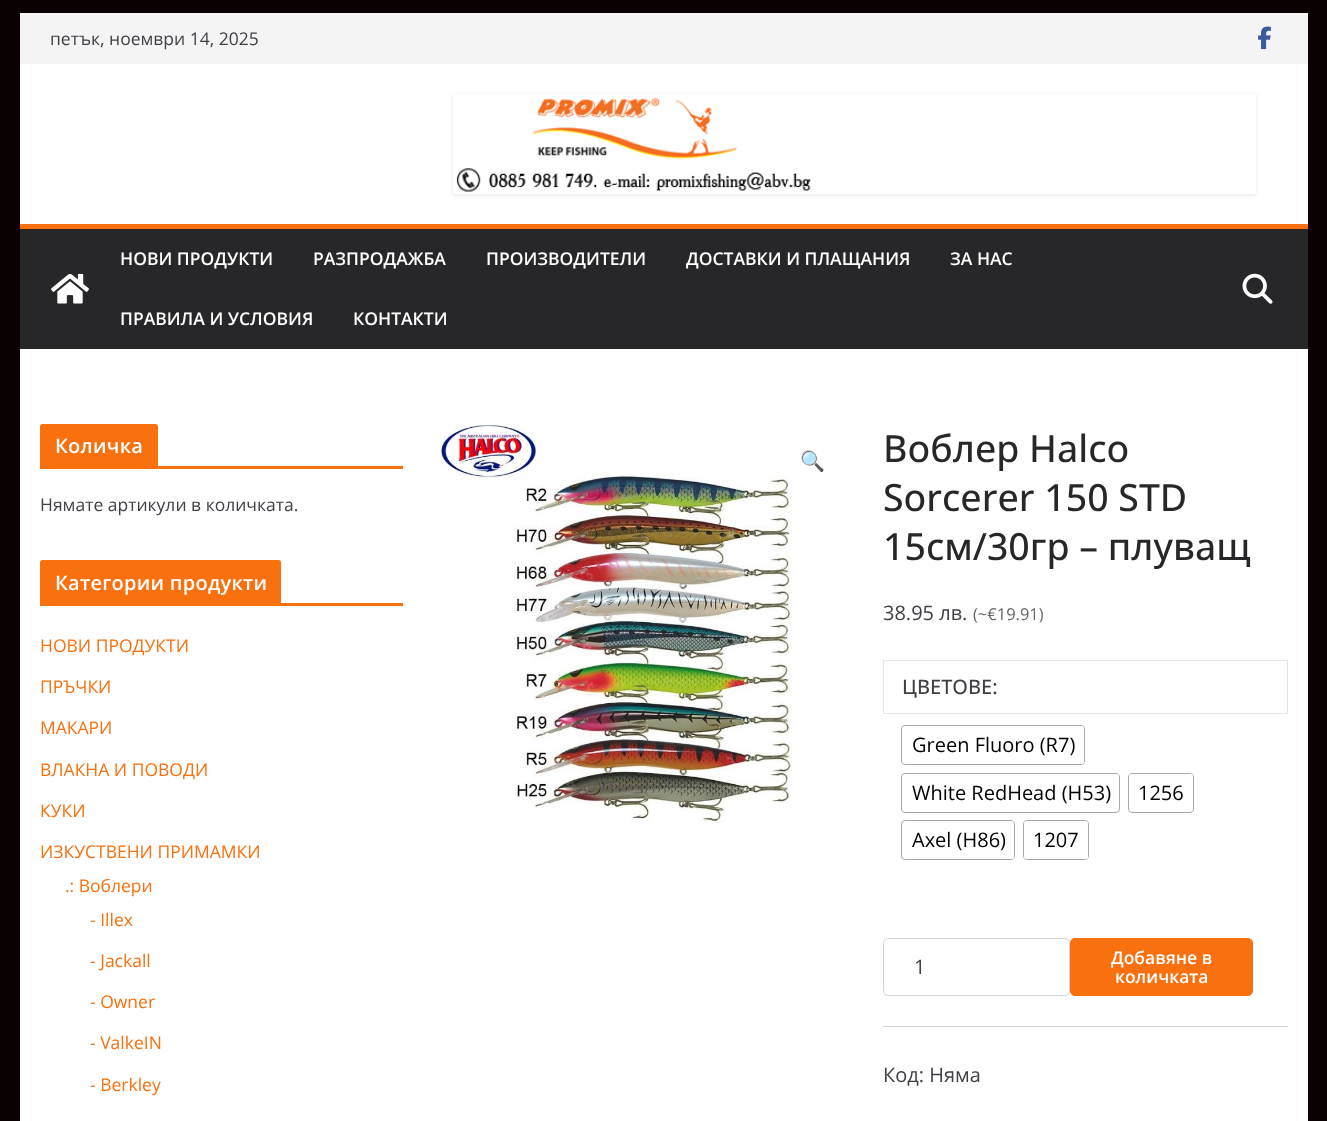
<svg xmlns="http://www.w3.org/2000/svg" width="1327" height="1121">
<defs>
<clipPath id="clip1"><path d="M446 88h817v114h-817zm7 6h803v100h-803z" clip-rule="evenodd"/></clipPath>
</defs>
<rect width="100%" height="100%" fill="#0a0202"/>
<rect x="20" y="64" width="1288" height="160" fill="#fff"/>
<rect x="20" y="13" width="1288" height="51" fill="#f4f4f5"/>
<text x="50" y="45" style="font-family:Open Sans;font-size:17.5px;fill:#3f3f46">петък, ноември 14, 2025</text>
<image x="1258" y="26" width="13" height="24" href="media/1.png"/>
<g clip-path="url(#clip1)">
<rect x="453" y="95" width="803" height="100" fill="#0000001a" filter="blur(2px)"/>
</g>
<image x="456" y="97" width="355" height="95" href="media/2.png"/>
<rect x="20" y="229" width="1288" height="120" fill="#27272a"/>
<rect x="20" y="224" width="1288" height="5" fill="#f9700e"/>
<image x="51" y="273" width="38" height="31" href="media/3.png"/>
<text x="120" y="265" style="font-family:Open Sans;font-size:17.5px;font-weight:600;fill:#fff">НОВИ ПРОДУКТИ</text>
<text x="313" y="265" style="font-family:Open Sans;font-size:17.5px;font-weight:600;fill:#fff">РАЗПРОДАЖБА</text>
<text x="486" y="265" style="font-family:Open Sans;font-size:17.5px;font-weight:600;fill:#fff">ПРОИЗВОДИТЕЛИ</text>
<text x="686" y="265" style="font-family:Open Sans;font-size:17.5px;font-weight:600;fill:#fff">ДОСТАВКИ И ПЛАЩАНИЯ</text>
<text x="950" y="265" style="font-family:Open Sans;font-size:17.5px;font-weight:600;fill:#fff">ЗА НАС</text>
<text x="120" y="325" style="font-family:Open Sans;font-size:17.5px;font-weight:600;fill:#fff">ПРАВИЛА И УСЛОВИЯ</text>
<text x="353" y="325" style="font-family:Open Sans;font-size:17.5px;font-weight:600;fill:#fff">КОНТАКТИ</text>
<image x="1242" y="273" width="31" height="31" href="media/4.png"/>
<rect x="20" y="349" width="1288" height="772" fill="#fff"/>
<rect x="40" y="466" width="363" height="3" fill="#f9700e"/>
<path d="M42.5 424h113c1.5 0 2.5 1 2.5 2.5v39.5h-118v-39.5c0-1.5 1-2.5 2.5-2.5z" fill="#f9700e"/>
<text x="55" y="453" style="font-family:Open Sans;font-size:20px;font-weight:600;letter-spacing:0.25px;fill:#fff">Количка</text>
<text x="40" y="511" style="font-family:Open Sans;font-size:17.5px;fill:#3f3f46">Нямате артикули в количката.</text>
<rect x="40" y="603" width="363" height="3" fill="#f9700e"/>
<path d="M42.5 560h236c1.5 0 2.5 1 2.5 2.5v40.5h-241v-40.5c0-1.5 1-2.5 2.5-2.5z" fill="#f9700e"/>
<text x="55" y="590" style="font-family:Open Sans;font-size:20px;font-weight:600;letter-spacing:0.25px;fill:#fff">Категории продукти</text>
<text x="40" y="652" style="font-family:Open Sans;font-size:17.5px;fill:#f9700e">НОВИ ПРОДУКТИ</text>
<text x="40" y="693" style="font-family:Open Sans;font-size:17.5px;fill:#f9700e">ПРЪЧКИ</text>
<text x="40" y="734" style="font-family:Open Sans;font-size:17.5px;fill:#f9700e">МАКАРИ</text>
<text x="40" y="776" style="font-family:Open Sans;font-size:17.5px;fill:#f9700e">ВЛАКНА И ПОВОДИ</text>
<text x="40" y="817" style="font-family:Open Sans;font-size:17.5px;fill:#f9700e">КУКИ</text>
<text x="40" y="858" style="font-family:Open Sans;font-size:17.5px;fill:#f9700e">ИЗКУСТВЕНИ ПРИМАМКИ</text>
<text x="65" y="892" style="font-family:Open Sans;font-size:17.5px;fill:#f9700e">.: Воблери</text>
<text x="90" y="926" style="font-family:Open Sans;font-size:17.5px;fill:#f9700e">- Illex</text>
<text x="90" y="967" style="font-family:Open Sans;font-size:17.5px;fill:#f9700e">- Jackall</text>
<text x="90" y="1008" style="font-family:Open Sans;font-size:17.5px;fill:#f9700e">- Owner</text>
<text x="90" y="1049" style="font-family:Open Sans;font-size:17.5px;fill:#f9700e">- ValkeIN</text>
<text x="90" y="1091" style="font-family:Open Sans;font-size:17.5px;fill:#f9700e">- Berkley</text>
<image x="440" y="424" width="352" height="398" href="media/5.png"/>
<text x="800" y="468" style="font-family:Noto Color Emoji;font-size:20px;fill:#f9700e">🔍</text>
<text x="883" y="462" style="font-family:Open Sans;font-size:37.5px;font-weight:500;fill:#27272a">Воблер Halco</text>
<text x="883" y="511" style="font-family:Open Sans;font-size:37.5px;font-weight:500;fill:#27272a">Sorcerer 150 STD</text>
<text x="883" y="560" style="font-family:Open Sans;font-size:37.5px;font-weight:500;fill:#27272a">15см/30гр – плуващ</text>
<text x="883" y="620" style="font-family:Open Sans;font-size:20px;fill:#3f3f46">38.95 лв.</text>
<text x="973" y="620" style="font-family:Open Sans;font-size:16.5px;fill:#666">(~€19.91)</text>
<rect x="883.5" y="660.5" width="404" height="53" fill="none" stroke="#e4e4e7"/>
<text x="902" y="694" style="font-family:Open Sans;font-size:20px;font-weight:500;fill:#3f3f46">ЦВЕТОВЕ:</text>
<rect x="901.5" y="725.5" width="183" height="39" rx="3.5" fill="none" stroke="#a8a8a8"/>
<rect x="903" y="726" width="181" height="38" rx="2.5" fill="#fff"/>
<text x="912" y="752" style="font-family:Open Sans;font-size:20px;fill:#000">Green Fluoro (R7)</text>
<rect x="901.5" y="773.5" width="218" height="39" rx="3.5" fill="none" stroke="#a8a8a8"/>
<rect x="903" y="774" width="216" height="37" rx="2.5" fill="#fff"/>
<text x="912" y="800" style="font-family:Open Sans;font-size:20px;fill:#000">White RedHead (H53)</text>
<rect x="1128.5" y="773.5" width="65" height="39" rx="3.5" fill="none" stroke="#a8a8a8"/>
<rect x="1129" y="774" width="64" height="37" rx="2.5" fill="#fff"/>
<text x="1138" y="800" style="font-family:Open Sans;font-size:20px;fill:#000">1256</text>
<rect x="901.5" y="820.5" width="113" height="39" rx="3.5" fill="none" stroke="#a8a8a8"/>
<rect x="903" y="821" width="111" height="38" rx="2.5" fill="#fff"/>
<text x="912" y="847" style="font-family:Open Sans;font-size:20px;fill:#000">Axel (H86)</text>
<rect x="1023.5" y="820.5" width="65" height="39" rx="3.5" fill="none" stroke="#a8a8a8"/>
<rect x="1024" y="821" width="64" height="38" rx="2.5" fill="#fff"/>
<text x="1033" y="847" style="font-family:Open Sans;font-size:20px;fill:#000">1207</text>
<rect x="883.5" y="938.5" width="186" height="57" rx="4.5" fill="none" stroke="#d4d4d8"/>
<text x="914" y="974" style="font-family:Open Sans;font-size:20px;fill:#3f3f46">1</text>
<rect x="1070.5" y="938.5" width="182" height="57" rx="4.5" fill="#f9700e" stroke="#f9700e"/>
<text x="1111" y="964" style="font-family:Open Sans;font-size:17.5px;font-weight:600;fill:#fff">Добавяне в</text>
<text x="1115" y="983" style="font-family:Open Sans;font-size:17.5px;font-weight:600;fill:#fff">количката</text>
<rect x="883" y="1026" width="405" height="1" fill="#d4d4d8"/>
<text x="883" y="1082" style="font-family:Open Sans;font-size:20px;fill:#3f3f46">Код: Няма</text>
</svg>
